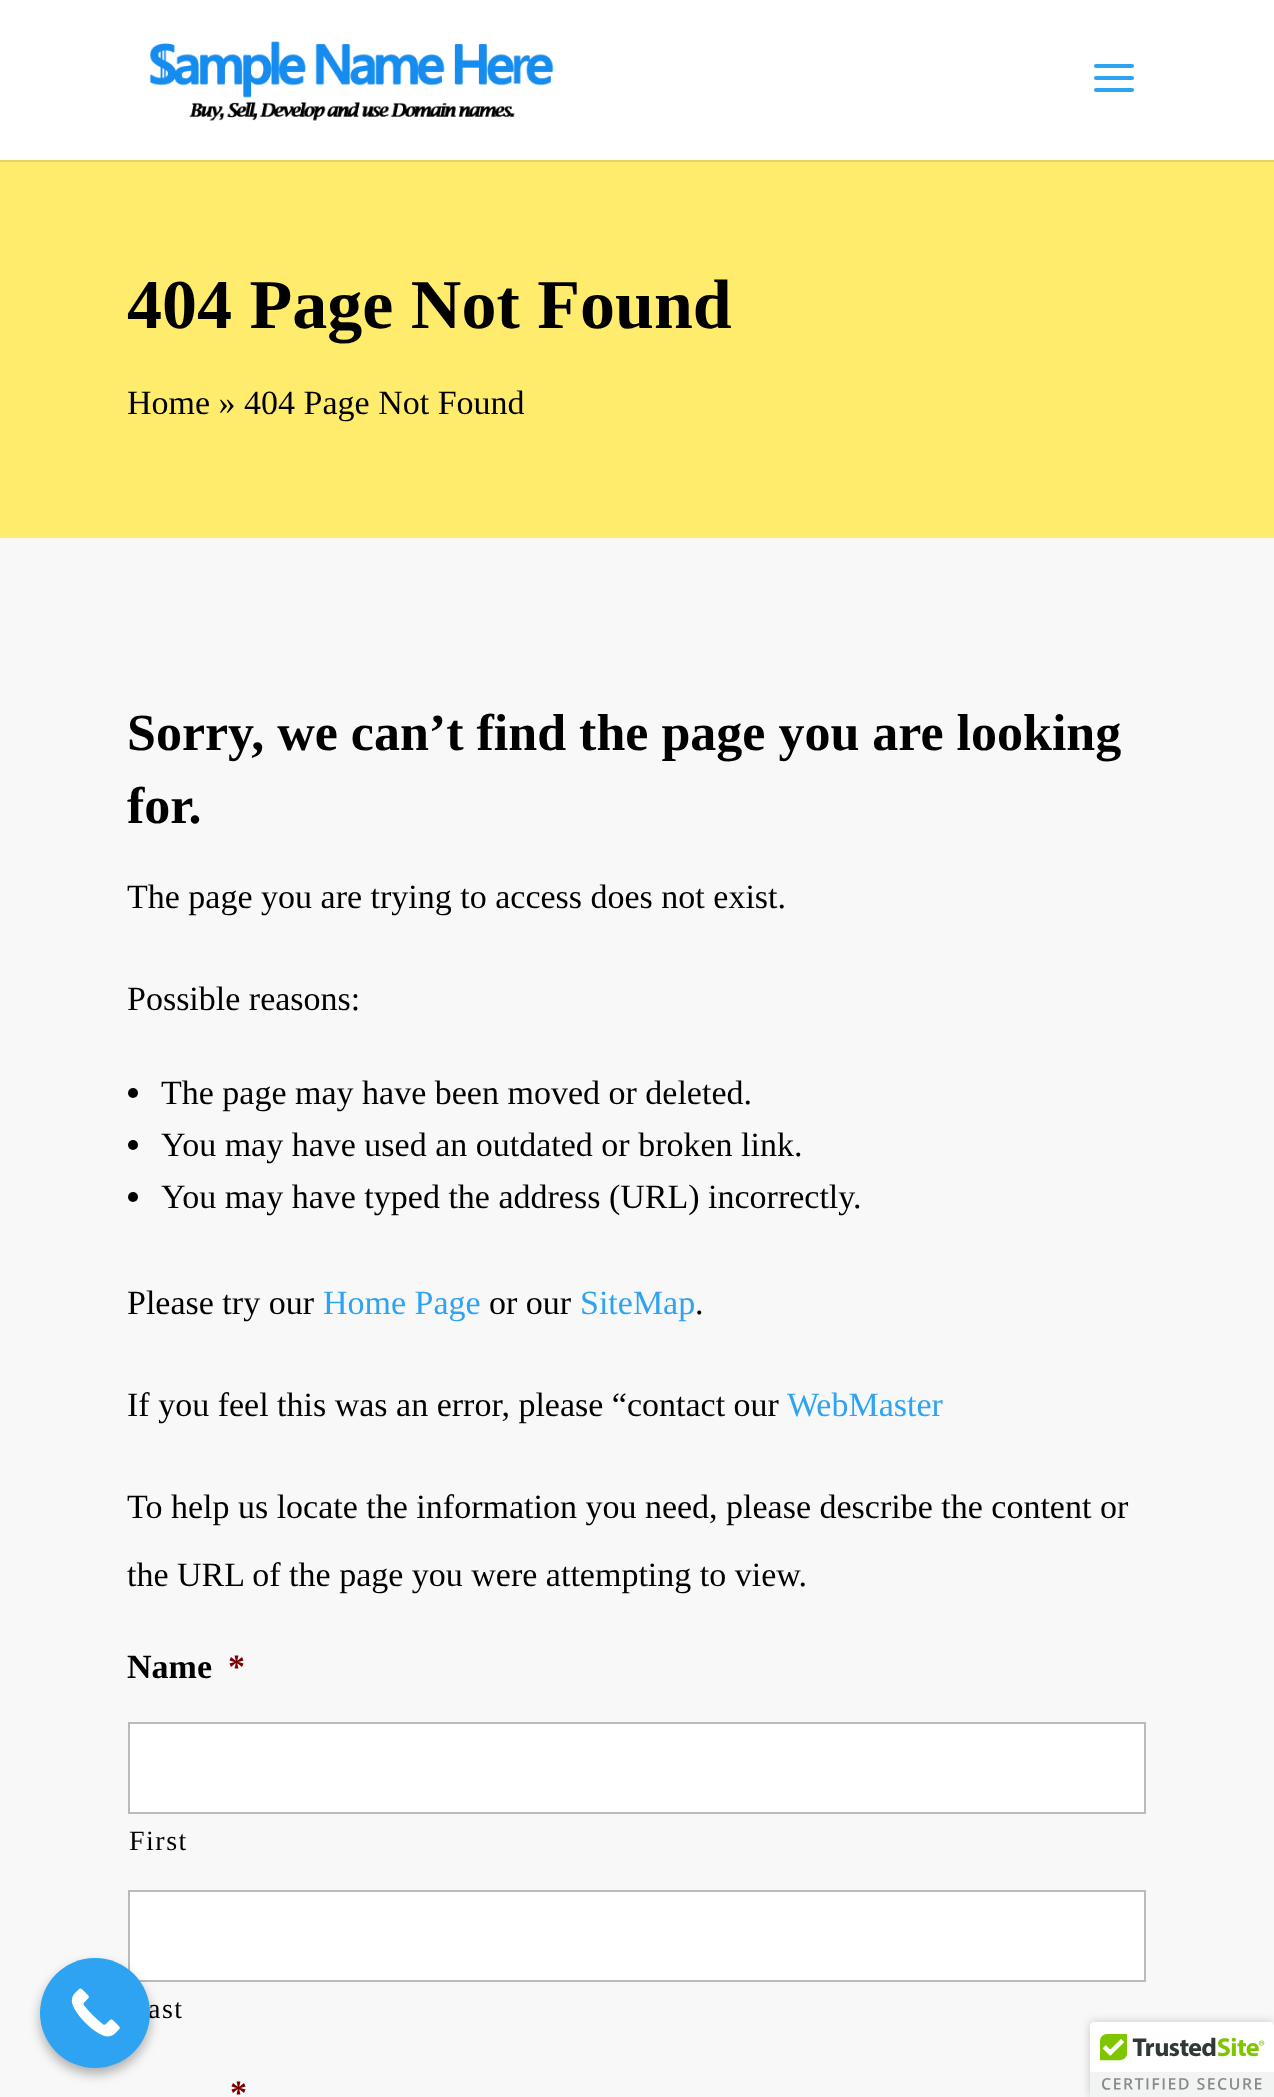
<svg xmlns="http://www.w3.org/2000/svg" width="1274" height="2097">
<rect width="100%" height="100%" fill="#fff"/>
<rect y="538" width="1274" height="1559" fill="#f8f8f8"/>
<rect x="129" y="1891" width="1016" height="90" fill="#fff" stroke="#bbb" stroke-width="2"/>
<rect x="40" y="1964" width="110" height="110" rx="55" fill="#0000004d" filter="blur(6px)"/>
<text x="148" y="2018" style="font-family:Liberation Serif;font-size:28px;letter-spacing:1.5px;fill:#000">ast</text>
<circle cx="95" cy="2013" r="55" fill="#2ea3f2"/>
<image x="71" y="1988" width="49" height="49" href="media/1.png"/>
<rect y="160" width="1274" height="2" fill="#e6d462"/>
<image x="149" y="41" width="405" height="80" href="media/2.png"/>
<image x="1094" y="64" width="40" height="28" href="media/3.png"/>
<rect y="162" width="1274" height="376" fill="#ffec6d"/>
<text x="127" y="328" style="font-family:Liberation Serif;font-size:70px;font-weight:bold;fill:#000">404 Page Not Found</text>
<text x="127" y="414" style="font-family:Liberation Serif;font-size:34px;fill:#000">Home » 404 Page Not Found</text>
<text x="127" y="750" style="font-family:Liberation Serif;font-size:52px;font-weight:bold;fill:#000">Sorry, we can’t find the page you are looking</text>
<text x="127" y="823" style="font-family:Liberation Serif;font-size:52px;font-weight:bold;fill:#000">for.</text>
<text x="127" y="908" style="font-family:Liberation Serif;font-size:34px;fill:#000">The page you are trying to access does not exist.</text>
<text x="127" y="1010" style="font-family:Liberation Serif;font-size:34px;fill:#000">Possible reasons:</text>
<circle cx="133" cy="1093" r="5" fill="#000"/>
<text x="161" y="1104" style="font-family:Liberation Serif;font-size:34px;fill:#000">The page may have been moved or deleted.</text>
<circle cx="133" cy="1145" r="5" fill="#000"/>
<text x="161" y="1156" style="font-family:Liberation Serif;font-size:34px;fill:#000">You may have used an outdated or broken link.</text>
<circle cx="133" cy="1197" r="5" fill="#000"/>
<text x="161" y="1208" style="font-family:Liberation Serif;font-size:34px;fill:#000">You may have typed the address (URL) incorrectly.</text>
<text x="127" y="1314" style="font-family:Liberation Serif;font-size:34px;fill:#000">Please try our</text>
<text x="323" y="1314" style="font-family:Liberation Serif;font-size:34px;fill:#2ea3f2">Home Page</text>
<text x="489" y="1314" style="font-family:Liberation Serif;font-size:34px;fill:#000">or our</text>
<text x="580" y="1314" style="font-family:Liberation Serif;font-size:34px;fill:#2ea3f2">SiteMap</text>
<text x="695" y="1314" style="font-family:Liberation Serif;font-size:34px;fill:#000">.</text>
<text x="127" y="1416" style="font-family:Liberation Serif;font-size:34px;fill:#000">If you feel this was an error, please “contact our</text>
<text x="787" y="1416" style="font-family:Liberation Serif;font-size:34px;fill:#2ea3f2">WebMaster</text>
<text x="127" y="1518" style="font-family:Liberation Serif;font-size:34px;fill:#000">To help us locate the information you need, please describe the content or</text>
<text x="127" y="1586" style="font-family:Liberation Serif;font-size:34px;fill:#000">the URL of the page you were attempting to view.</text>
<text x="127" y="1678" style="font-family:Liberation Serif;font-size:34px;font-weight:bold;fill:#000">Name</text>
<text x="228" y="1678" style="font-family:Liberation Serif;font-size:34px;font-weight:bold;fill:#790000">*</text>
<rect x="129" y="1723" width="1016" height="90" fill="#fff" stroke="#bbb" stroke-width="2"/>
<text x="129" y="1850" style="font-family:Liberation Serif;font-size:28px;letter-spacing:1.5px;fill:#000">First</text>
<text x="230" y="2104" style="font-family:Liberation Serif;font-size:34px;font-weight:bold;fill:#790000">*</text>
<rect x="1090" y="2022" width="184" height="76" rx="4" fill="#00000033" filter="blur(5px)"/>
<path d="M1094 2022h180v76h-184v-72c0-2 2-4 4-4z" fill="#fff"/>
<image x="1090" y="2022" width="184" height="75" href="media/4.png"/>
</svg>
